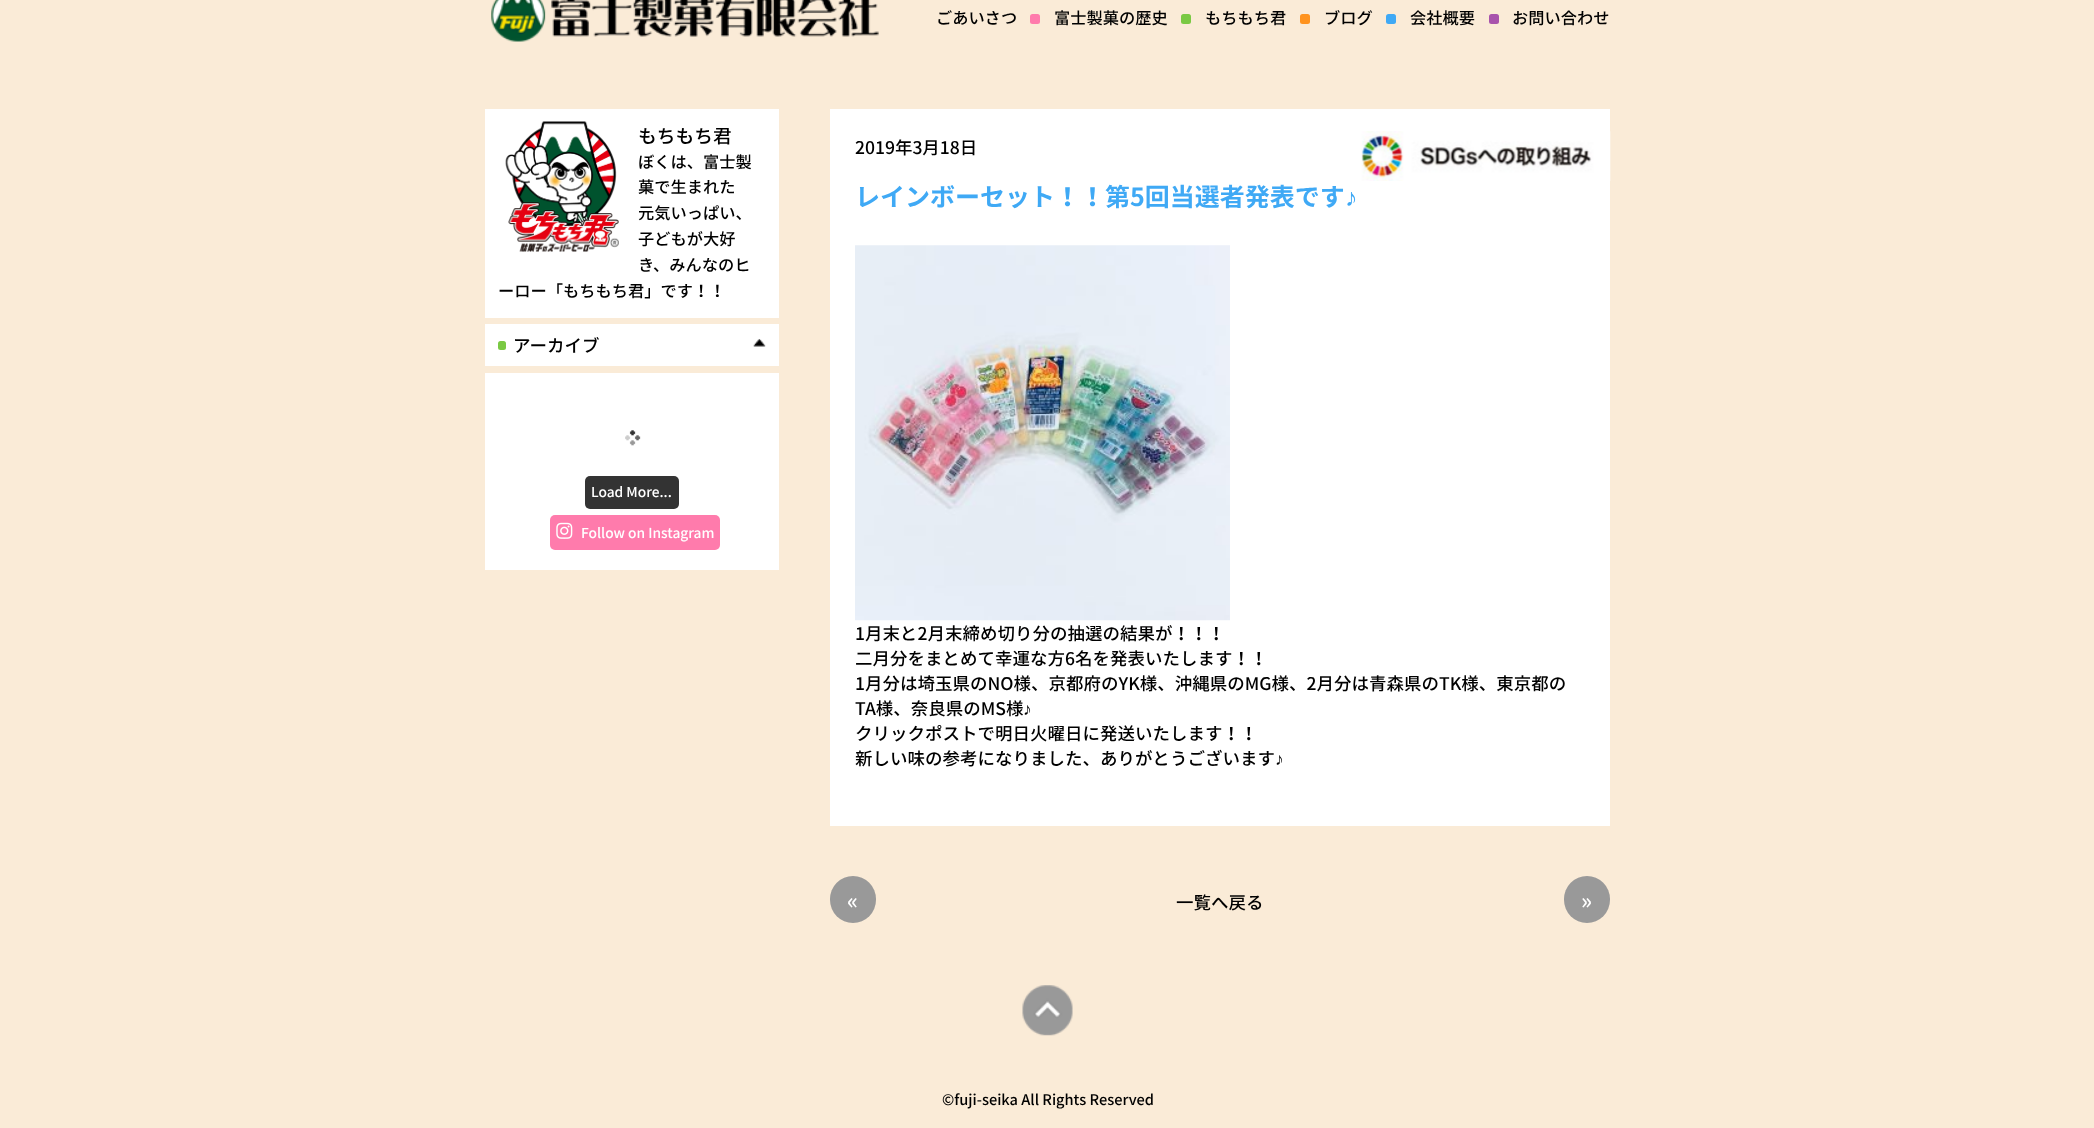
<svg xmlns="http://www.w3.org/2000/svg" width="2094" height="1128">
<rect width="100%" height="100%" fill="#faebd7"/>
<image x="491" y="0" width="388" height="42" href="media/1.png"/>
<text x="936" y="24" style="font-family:Noto Sans JP;font-size:16.25px;font-weight:500;fill:#000">ごあいさつ</text>
<rect x="1030" y="14" width="10" height="10" rx="2.5" fill="#ff7bac"/>
<text x="1054" y="24" style="font-family:Noto Sans JP;font-size:16.25px;font-weight:500;fill:#000">富士製菓の歴史</text>
<rect x="1181" y="14" width="10" height="10" rx="2.5" fill="#7ac943"/>
<text x="1205" y="24" style="font-family:Noto Sans JP;font-size:16.25px;font-weight:500;fill:#000">もちもち君</text>
<rect x="1300" y="14" width="10" height="10" rx="2.5" fill="#ff931e"/>
<text x="1324" y="24" style="font-family:Noto Sans JP;font-size:16.25px;font-weight:500;fill:#000">ブログ</text>
<rect x="1386" y="14" width="10" height="10" rx="2.5" fill="#3fa9f5"/>
<text x="1410" y="24" style="font-family:Noto Sans JP;font-size:16.25px;font-weight:500;fill:#000">会社概要</text>
<rect x="1489" y="14" width="10" height="10" rx="2.5" fill="#a853ac"/>
<text x="1512" y="24" style="font-family:Noto Sans JP;font-size:16.25px;font-weight:500;fill:#000">お問い合わせ</text>
<rect x="485" y="109" width="294" height="209" fill="#fff"/>
<image x="505" y="121" width="114" height="131" href="media/2.png"/>
<text x="638" y="143" style="font-family:Noto Sans JP;font-size:18.75px;font-weight:500;fill:#000">もちもち君</text>
<text x="638" y="168" style="font-family:Noto Sans JP;font-size:16.25px;font-weight:500;fill:#000">ぼくは、富士製</text>
<text x="638" y="193" style="font-family:Noto Sans JP;font-size:16.25px;font-weight:500;fill:#000">菓で生まれた</text>
<text x="638" y="219" style="font-family:Noto Sans JP;font-size:16.25px;font-weight:500;fill:#000">元気いっぱい、</text>
<text x="638" y="245" style="font-family:Noto Sans JP;font-size:16.25px;font-weight:500;fill:#000">子どもが大好</text>
<text x="638" y="271" style="font-family:Noto Sans JP;font-size:16.25px;font-weight:500;fill:#000">き、みんなのヒ</text>
<text x="498" y="297" style="font-family:Noto Sans JP;font-size:16.25px;font-weight:500;fill:#000">ーロー「もちもち君」です！！</text>
<rect x="485" y="324" width="294" height="42" fill="#fff"/>
<rect x="498" y="341" width="8" height="9" rx="2.5" fill="#7ac943"/>
<text x="513" y="352" style="font-family:Noto Sans JP;font-size:17.5px;font-weight:500;fill:#000">アーカイブ</text>
<image x="753" y="339" width="13" height="8" href="media/3.png"/>
<rect x="485" y="373" width="294" height="197" fill="#fff"/>
<image x="625" y="430" width="16" height="16" href="media/4.png"/>
<rect x="585" y="476" width="94" height="33" rx="5" fill="#333"/>
<text x="591" y="497" style="font-family:Noto Sans JP;font-size:13.75px;font-weight:500;fill:#fff">Load More...</text>
<rect x="550" y="515" width="170" height="35" rx="5" fill="#ff7bac"/>
<image x="556" y="522" width="17" height="17" href="media/5.png"/>
<text x="581" y="538" style="font-family:Noto Sans JP;font-size:13.75px;font-weight:500;fill:#fff">Follow on Instagram</text>
<rect x="830" y="109" width="780" height="717" fill="#fff"/>
<text x="855" y="154" style="font-family:Noto Sans JP;font-size:17.5px;font-weight:500;fill:#000">2019年3月18日</text>
<text x="855" y="206" style="font-family:Noto Sans JP;font-size:25px;font-weight:bold;fill:#3fa9f5">レインボーセット！！第5回当選者発表です</text>
<text x="1345" y="206" style="font-family:Liberation Sans;font-size:25px;font-weight:bold;fill:#3fa9f5">♪</text>
<image x="855" y="245" width="375" height="376" href="media/6.png"/>
<text x="855" y="640" style="font-family:Noto Sans JP;font-size:17.5px;font-weight:500;fill:#000">1月末と2月末締め切り分の抽選の結果が！！！</text>
<text x="855" y="665" style="font-family:Noto Sans JP;font-size:17.5px;font-weight:500;fill:#000">二月分をまとめて幸運な方6名を発表いたします！！</text>
<text x="855" y="690" style="font-family:Noto Sans JP;font-size:17.5px;font-weight:500;fill:#000">1月分は埼玉県のNO様、京都府のYK様、沖縄県のMG様、2月分は青森県のTK様、東京都の</text>
<text x="855" y="715" style="font-family:Noto Sans JP;font-size:17.5px;font-weight:500;fill:#000">TA様、奈良県のMS様</text>
<text x="1023" y="715" style="font-family:Liberation Sans;font-size:17.5px;fill:#000">♪</text>
<text x="855" y="740" style="font-family:Noto Sans JP;font-size:17.5px;font-weight:500;fill:#000">クリックポストで明日火曜日に発送いたします！！</text>
<text x="855" y="765" style="font-family:Noto Sans JP;font-size:17.5px;font-weight:500;fill:#000">新しい味の参考になりました、ありがとうございます</text>
<text x="1275" y="765" style="font-family:Liberation Sans;font-size:17.5px;fill:#000">♪</text>
<rect x="830" y="876" width="46" height="47" rx="23" fill="#999"/>
<text x="847" y="909" style="font-family:Noto Sans JP;font-size:22px;font-weight:500;fill:#fff">«</text>
<text x="1176" y="909" style="font-family:Noto Sans JP;font-size:17.5px;font-weight:500;fill:#000">一覧へ戻る</text>
<rect x="1564" y="876" width="46" height="47" rx="23" fill="#999"/>
<text x="1581" y="909" style="font-family:Noto Sans JP;font-size:22px;font-weight:500;fill:#fff">»</text>
<image x="1022" y="985" width="51" height="51" href="media/7.png"/>
<text x="942" y="1105" style="font-family:Noto Sans JP;font-size:14.6px;font-weight:500;fill:#000">©fuji-seika All Rights Reserved</text>
<image x="1361" y="131" width="250" height="50" href="media/8.png"/>
</svg>
